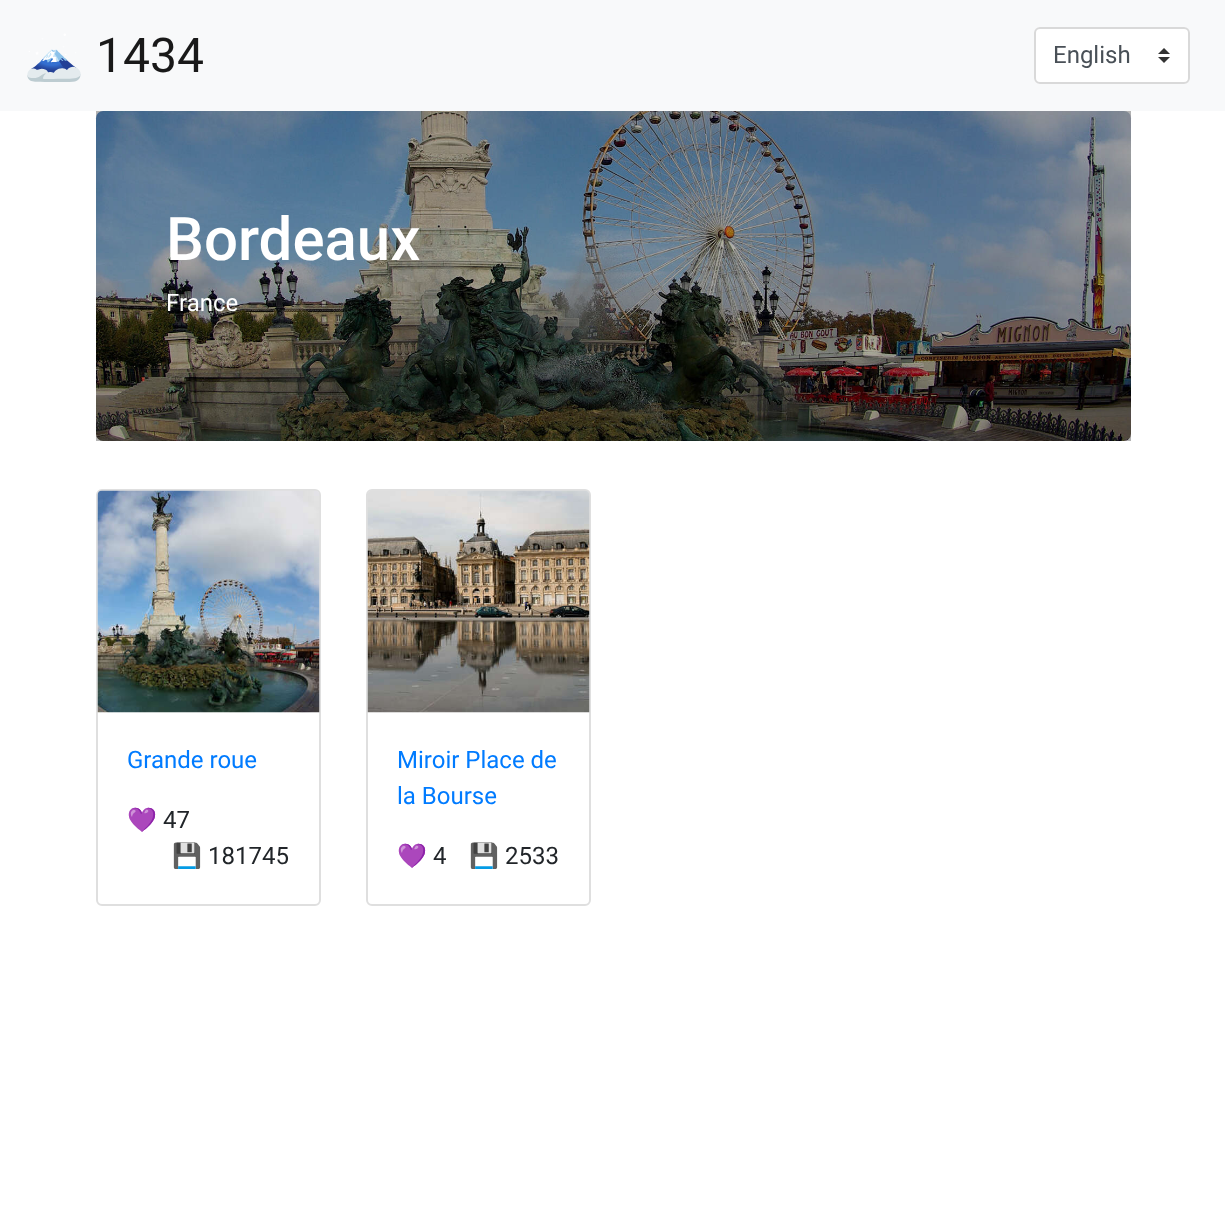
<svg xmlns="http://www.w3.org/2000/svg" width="1225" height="1211">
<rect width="100%" height="100%" fill="#fff"/>
<rect x="96" y="111" width="1035" height="330" fill="#b3b3b3"/>
<rect width="1225" height="111" fill="#f8f9fa"/>
<text x="24" y="72" style="font-family:Noto Color Emoji;font-size:48px;fill:#191919">🗻</text>
<text x="96" y="72" style="font-family:Roboto;font-size:48px;fill:#191919">1434</text>
<rect x="1034" y="27" width="156" height="57" rx="6" fill="#fff"/>
<image x="1158" y="48" width="12" height="15" href="media/1.png"/>
<rect x="1035" y="28" width="154" height="55" rx="5" fill="none" stroke="#d9d9d9" stroke-width="2"/>
<text x="1053" y="63" style="font-family:Roboto;font-size:24px;fill:#495057">English</text>
<image x="95" y="111" width="1037" height="330" href="media/2.png"/>
<text x="166" y="260" style="font-family:Roboto;font-size:60px;font-weight:500;fill:#fff">Bordeaux</text>
<text x="166" y="311" style="font-family:Roboto;font-size:24px;fill:#fff">France</text>
<rect x="97" y="490" width="223" height="415" rx="5" fill="none" stroke="#dfdfdf" stroke-width="2"/>
<image x="97" y="490" width="223" height="223" href="media/3.png"/>
<text x="127" y="768" style="font-family:Roboto;font-size:24px;fill:#007bff">Grande roue</text>
<text x="127" y="828" style="font-family:Noto Color Emoji;font-size:24px;fill:#212529">💜</text>
<text x="163" y="828" style="font-family:Roboto;font-size:24px;fill:#212529">47</text>
<text x="172" y="864" style="font-family:Noto Color Emoji;font-size:24px;fill:#212529">💾</text>
<text x="208" y="864" style="font-family:Roboto;font-size:24px;fill:#212529">181745</text>
<rect x="367" y="490" width="223" height="415" rx="5" fill="none" stroke="#dfdfdf" stroke-width="2"/>
<image x="367" y="490" width="223" height="223" href="media/4.png"/>
<text x="397" y="768" style="font-family:Roboto;font-size:24px;fill:#007bff">Miroir Place de</text>
<text x="397" y="804" style="font-family:Roboto;font-size:24px;fill:#007bff">la Bourse</text>
<text x="397" y="864" style="font-family:Noto Color Emoji;font-size:24px;fill:#212529">💜</text>
<text x="433" y="864" style="font-family:Roboto;font-size:24px;fill:#212529">4</text>
<text x="469" y="864" style="font-family:Noto Color Emoji;font-size:24px;fill:#212529">💾</text>
<text x="505" y="864" style="font-family:Roboto;font-size:24px;fill:#212529">2533</text>
</svg>
